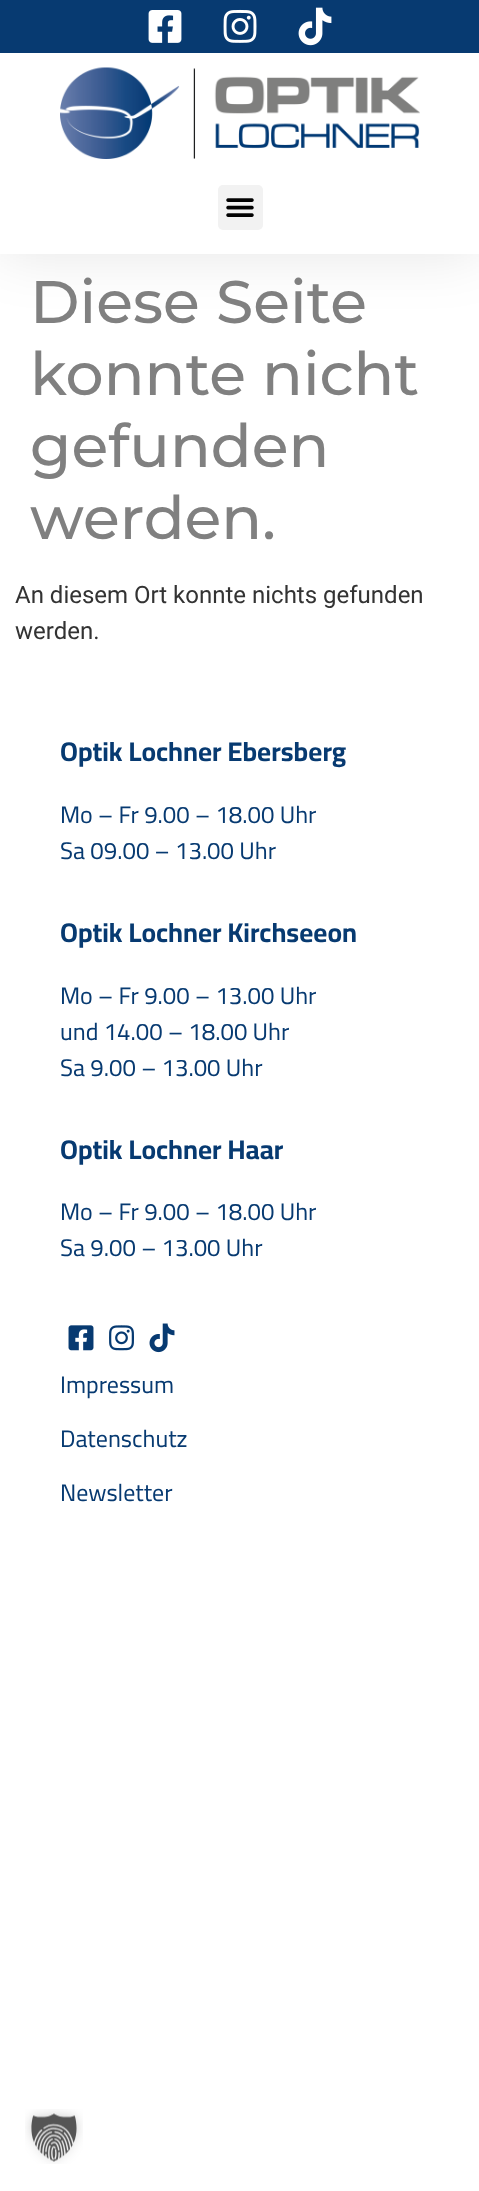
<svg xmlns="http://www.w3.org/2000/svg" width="479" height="2191">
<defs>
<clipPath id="clip1"><path d="M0 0h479v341h-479zm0 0h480v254h-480z" clip-rule="evenodd"/></clipPath>
</defs>
<rect width="100%" height="100%" fill="#fff"/>
<g clip-path="url(#clip1)">
<rect width="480" height="254" fill="#0000001a" filter="blur(28.5px)"/>
</g>
<rect width="479" height="53" fill="#073a71"/>
<image x="148" y="10" width="34" height="33" href="media/1.png"/>
<image x="223" y="9" width="34" height="34" href="media/2.png"/>
<image x="298" y="7" width="34" height="39" href="media/3.png"/>
<image x="60" y="67" width="360" height="92" href="media/4.png"/>
<rect x="218" y="185" width="45" height="45" rx="5" fill="#f2f2f2"/>
<image x="226" y="198" width="28" height="19" href="media/5.png"/>
<text x="30" y="323" style="font-family:Montserrat;font-size:60px;font-weight:500;fill:#808080">Diese Seite</text>
<text x="30" y="395" style="font-family:Montserrat;font-size:60px;font-weight:500;fill:#808080">konnte nicht</text>
<text x="30" y="467" style="font-family:Montserrat;font-size:60px;font-weight:500;fill:#808080">gefunden</text>
<text x="30" y="539" style="font-family:Montserrat;font-size:60px;font-weight:500;fill:#808080">werden.</text>
<text x="15" y="603" style="font-family:Roboto;font-size:24px;fill:#333">An diesem Ort konnte nichts gefunden</text>
<text x="15" y="639" style="font-family:Roboto;font-size:24px;fill:#333">werden.</text>
<text x="60" y="761" style="font-family:Cairo;font-size:27px;font-weight:bold;fill:#073a71">Optik Lochner Ebersberg</text>
<text x="60" y="823" style="font-family:Cairo;font-size:24px;fill:#073a71">Mo – Fr 9.00 – 18.00 Uhr</text>
<text x="60" y="859" style="font-family:Cairo;font-size:24px;fill:#073a71">Sa 09.00 – 13.00 Uhr</text>
<text x="60" y="942" style="font-family:Cairo;font-size:27px;font-weight:bold;fill:#073a71">Optik Lochner Kirchseeon</text>
<text x="60" y="1004" style="font-family:Cairo;font-size:24px;fill:#073a71">Mo – Fr 9.00 – 13.00 Uhr</text>
<text x="60" y="1040" style="font-family:Cairo;font-size:24px;fill:#073a71">und 14.00 – 18.00 Uhr</text>
<text x="60" y="1076" style="font-family:Cairo;font-size:24px;fill:#073a71">Sa 9.00 – 13.00 Uhr</text>
<text x="60" y="1159" style="font-family:Cairo;font-size:27px;font-weight:bold;fill:#073a71">Optik Lochner Haar</text>
<text x="60" y="1220" style="font-family:Cairo;font-size:24px;fill:#073a71">Mo – Fr 9.00 – 18.00 Uhr</text>
<text x="60" y="1256" style="font-family:Cairo;font-size:24px;fill:#073a71">Sa 9.00 – 13.00 Uhr</text>
<image x="68" y="1325" width="26" height="26" href="media/6.png"/>
<image x="109" y="1325" width="25" height="26" href="media/7.png"/>
<image x="149" y="1323" width="26" height="30" href="media/8.png"/>
<text x="60" y="1393" style="font-family:Cairo;font-size:24px;fill:#073a71">Impressum</text>
<text x="60" y="1447" style="font-family:Cairo;font-size:24px;fill:#073a71">Datenschutz</text>
<text x="60" y="1501" style="font-family:Cairo;font-size:24px;fill:#073a71">Newsletter</text>
<image x="25" y="2109" width="58" height="55" href="media/9.png"/>
</svg>
